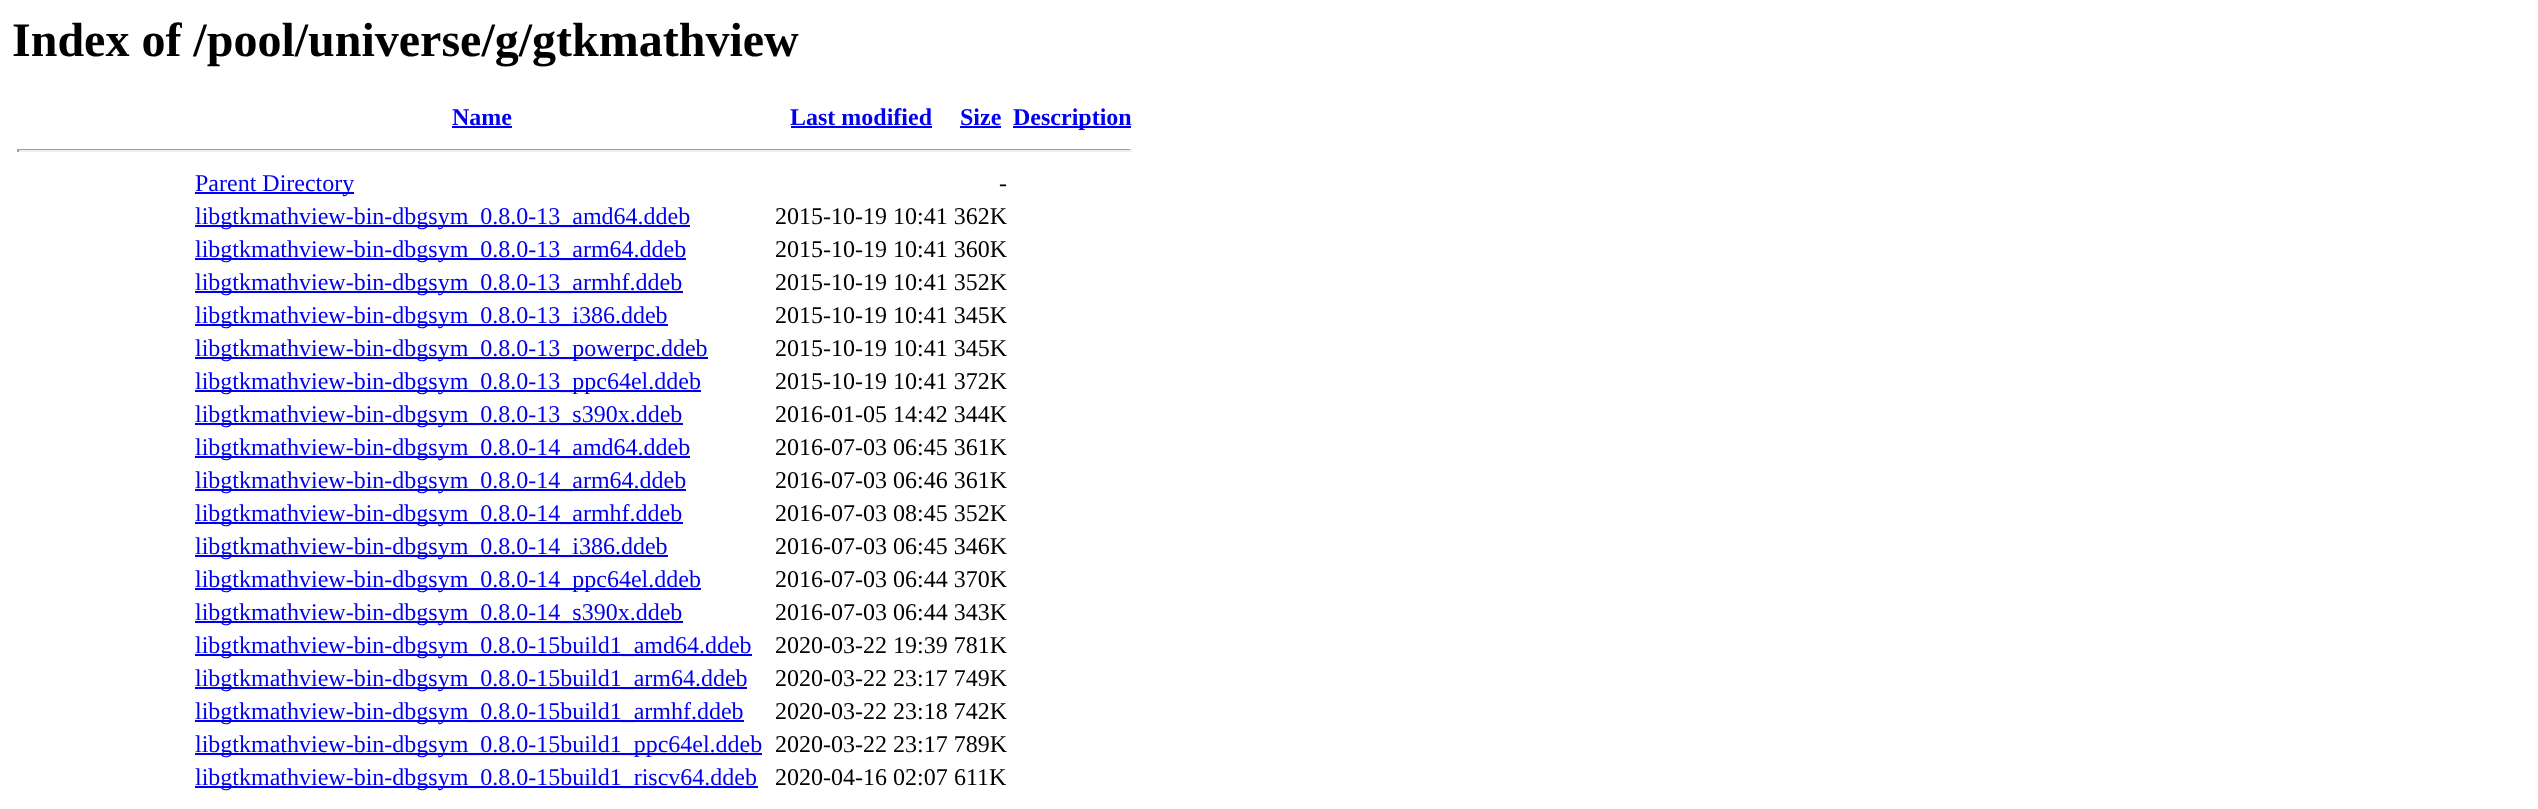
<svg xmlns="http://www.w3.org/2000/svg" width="2538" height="809">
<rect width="100%" height="100%" fill="#fff"/>
<text x="12" y="56" style="font-family:Liberation Serif;font-size:48px;font-weight:bold;fill:#000">Index of /pool/universe/g/gtkmathview</text>
<text x="452" y="125" style="font-family:Liberation Serif;font-size:24px;font-weight:bold;fill:#00e">Name</text>
<rect x="452" y="126" width="60" height="2" fill="#00e"/>
<text x="790" y="125" style="font-family:Liberation Serif;font-size:24px;font-weight:bold;fill:#00e">Last modified</text>
<rect x="791" y="126" width="141" height="2" fill="#00e"/>
<text x="960" y="125" style="font-family:Liberation Serif;font-size:24px;font-weight:bold;fill:#00e">Size</text>
<rect x="960" y="126" width="41" height="2" fill="#00e"/>
<rect x="1013" y="126" width="118" height="2" fill="#00e"/>
<text x="1013" y="125" style="font-family:Liberation Serif;font-size:24px;font-weight:bold;fill:#00e">Description</text>
<rect x="17" y="149" width="1114" height="1" fill="#9f9f9f"/>
<rect x="1130" y="149" width="2" height="3" fill="#eee"/>
<rect x="17" y="150" width="1114" height="2" fill="#eee"/>
<rect x="17" y="149" width="2" height="3" fill="#9f9f9f"/>
<rect x="195" y="192" width="159" height="2" fill="#00e"/>
<text x="195" y="191" style="font-family:Liberation Serif;font-size:24px;fill:#00e">Parent Directory</text>
<text x="999" y="191" style="font-family:Liberation Serif;font-size:24px;fill:#000">-</text>
<rect x="195" y="225" width="495" height="2" fill="#00e"/>
<text x="195" y="224" style="font-family:Liberation Serif;font-size:24px;fill:#00e">libgtkmathview-bin-dbgsym_0.8.0-13_amd64.ddeb</text>
<text x="775" y="224" style="font-family:Liberation Serif;font-size:24px;fill:#000">2015-10-19 10:41 362K</text>
<rect x="195" y="258" width="491" height="2" fill="#00e"/>
<text x="195" y="257" style="font-family:Liberation Serif;font-size:24px;fill:#00e">libgtkmathview-bin-dbgsym_0.8.0-13_arm64.ddeb</text>
<text x="775" y="257" style="font-family:Liberation Serif;font-size:24px;fill:#000">2015-10-19 10:41 360K</text>
<rect x="195" y="291" width="488" height="2" fill="#00e"/>
<text x="195" y="290" style="font-family:Liberation Serif;font-size:24px;fill:#00e">libgtkmathview-bin-dbgsym_0.8.0-13_armhf.ddeb</text>
<text x="775" y="290" style="font-family:Liberation Serif;font-size:24px;fill:#000">2015-10-19 10:41 352K</text>
<rect x="195" y="324" width="473" height="2" fill="#00e"/>
<text x="195" y="323" style="font-family:Liberation Serif;font-size:24px;fill:#00e">libgtkmathview-bin-dbgsym_0.8.0-13_i386.ddeb</text>
<text x="775" y="323" style="font-family:Liberation Serif;font-size:24px;fill:#000">2015-10-19 10:41 345K</text>
<rect x="195" y="357" width="513" height="2" fill="#00e"/>
<text x="195" y="356" style="font-family:Liberation Serif;font-size:24px;fill:#00e">libgtkmathview-bin-dbgsym_0.8.0-13_powerpc.ddeb</text>
<text x="775" y="356" style="font-family:Liberation Serif;font-size:24px;fill:#000">2015-10-19 10:41 345K</text>
<rect x="195" y="390" width="506" height="2" fill="#00e"/>
<text x="195" y="389" style="font-family:Liberation Serif;font-size:24px;fill:#00e">libgtkmathview-bin-dbgsym_0.8.0-13_ppc64el.ddeb</text>
<text x="775" y="389" style="font-family:Liberation Serif;font-size:24px;fill:#000">2015-10-19 10:41 372K</text>
<rect x="195" y="423" width="488" height="2" fill="#00e"/>
<text x="195" y="422" style="font-family:Liberation Serif;font-size:24px;fill:#00e">libgtkmathview-bin-dbgsym_0.8.0-13_s390x.ddeb</text>
<text x="775" y="422" style="font-family:Liberation Serif;font-size:24px;fill:#000">2016-01-05 14:42 344K</text>
<rect x="195" y="456" width="495" height="2" fill="#00e"/>
<text x="195" y="455" style="font-family:Liberation Serif;font-size:24px;fill:#00e">libgtkmathview-bin-dbgsym_0.8.0-14_amd64.ddeb</text>
<text x="775" y="455" style="font-family:Liberation Serif;font-size:24px;fill:#000">2016-07-03 06:45 361K</text>
<rect x="195" y="489" width="491" height="2" fill="#00e"/>
<text x="195" y="488" style="font-family:Liberation Serif;font-size:24px;fill:#00e">libgtkmathview-bin-dbgsym_0.8.0-14_arm64.ddeb</text>
<text x="775" y="488" style="font-family:Liberation Serif;font-size:24px;fill:#000">2016-07-03 06:46 361K</text>
<rect x="195" y="522" width="488" height="2" fill="#00e"/>
<text x="195" y="521" style="font-family:Liberation Serif;font-size:24px;fill:#00e">libgtkmathview-bin-dbgsym_0.8.0-14_armhf.ddeb</text>
<text x="775" y="521" style="font-family:Liberation Serif;font-size:24px;fill:#000">2016-07-03 08:45 352K</text>
<rect x="195" y="555" width="473" height="2" fill="#00e"/>
<text x="195" y="554" style="font-family:Liberation Serif;font-size:24px;fill:#00e">libgtkmathview-bin-dbgsym_0.8.0-14_i386.ddeb</text>
<text x="775" y="554" style="font-family:Liberation Serif;font-size:24px;fill:#000">2016-07-03 06:45 346K</text>
<rect x="195" y="588" width="506" height="2" fill="#00e"/>
<text x="195" y="587" style="font-family:Liberation Serif;font-size:24px;fill:#00e">libgtkmathview-bin-dbgsym_0.8.0-14_ppc64el.ddeb</text>
<text x="775" y="587" style="font-family:Liberation Serif;font-size:24px;fill:#000">2016-07-03 06:44 370K</text>
<rect x="195" y="621" width="488" height="2" fill="#00e"/>
<text x="195" y="620" style="font-family:Liberation Serif;font-size:24px;fill:#00e">libgtkmathview-bin-dbgsym_0.8.0-14_s390x.ddeb</text>
<text x="775" y="620" style="font-family:Liberation Serif;font-size:24px;fill:#000">2016-07-03 06:44 343K</text>
<rect x="195" y="654" width="557" height="2" fill="#00e"/>
<text x="195" y="653" style="font-family:Liberation Serif;font-size:24px;fill:#00e">libgtkmathview-bin-dbgsym_0.8.0-15build1_amd64.ddeb</text>
<text x="775" y="653" style="font-family:Liberation Serif;font-size:24px;fill:#000">2020-03-22 19:39 781K</text>
<rect x="195" y="687" width="552" height="2" fill="#00e"/>
<text x="195" y="686" style="font-family:Liberation Serif;font-size:24px;fill:#00e">libgtkmathview-bin-dbgsym_0.8.0-15build1_arm64.ddeb</text>
<text x="775" y="686" style="font-family:Liberation Serif;font-size:24px;fill:#000">2020-03-22 23:17 749K</text>
<rect x="195" y="720" width="549" height="2" fill="#00e"/>
<text x="195" y="719" style="font-family:Liberation Serif;font-size:24px;fill:#00e">libgtkmathview-bin-dbgsym_0.8.0-15build1_armhf.ddeb</text>
<text x="775" y="719" style="font-family:Liberation Serif;font-size:24px;fill:#000">2020-03-22 23:18 742K</text>
<rect x="195" y="753" width="567" height="2" fill="#00e"/>
<text x="195" y="752" style="font-family:Liberation Serif;font-size:24px;fill:#00e">libgtkmathview-bin-dbgsym_0.8.0-15build1_ppc64el.ddeb</text>
<text x="775" y="752" style="font-family:Liberation Serif;font-size:24px;fill:#000">2020-03-22 23:17 789K</text>
<rect x="195" y="786" width="563" height="2" fill="#00e"/>
<text x="195" y="785" style="font-family:Liberation Serif;font-size:24px;fill:#00e">libgtkmathview-bin-dbgsym_0.8.0-15build1_riscv64.ddeb</text>
<text x="775" y="785" style="font-family:Liberation Serif;font-size:24px;fill:#000">2020-04-16 02:07</text>
<text x="954" y="785" style="font-family:Liberation Serif;font-size:24px;fill:#000">611K</text>
</svg>
